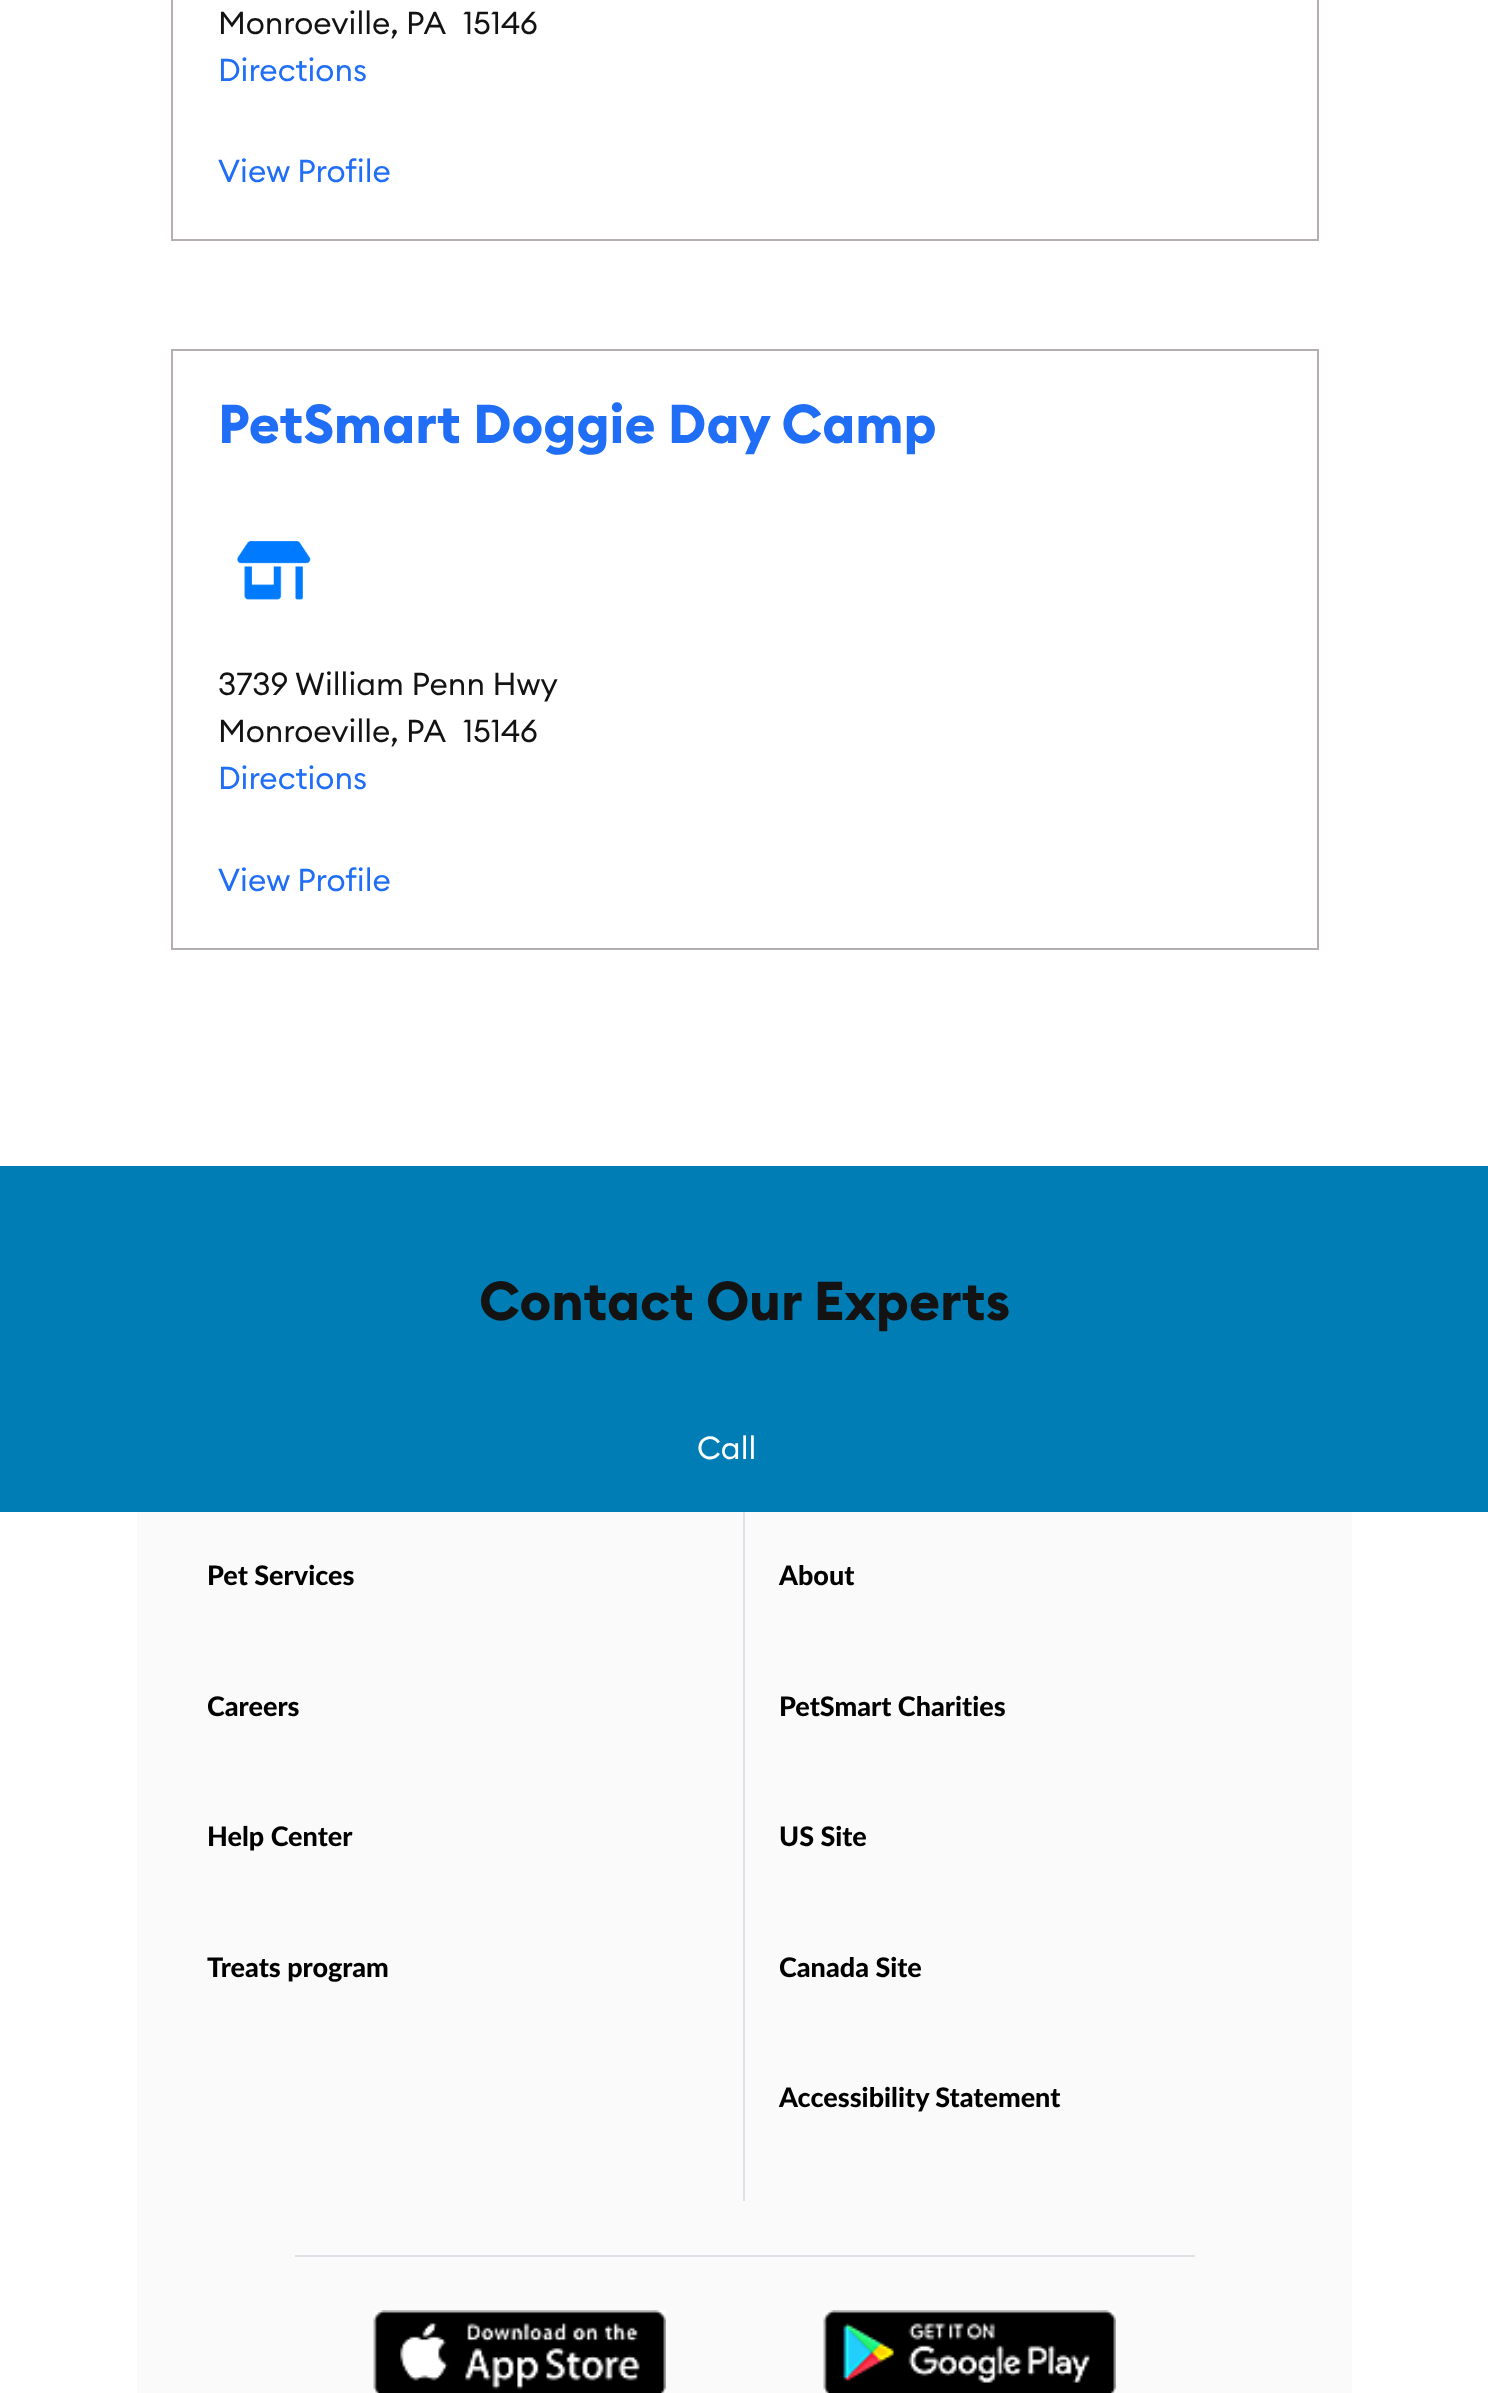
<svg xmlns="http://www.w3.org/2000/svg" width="1488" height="2393">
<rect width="100%" height="100%" fill="#fff"/>
<rect x="172" y="-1" width="1146" height="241" fill="none" stroke="#b6afb0" stroke-width="2"/>
<text x="218" y="34" style="font-family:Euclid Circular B;font-size:31.5px;fill:#131313">Monroeville, PA</text>
<text x="463" y="34" style="font-family:Euclid Circular B;font-size:31.5px;fill:#131313">15146</text>
<text x="218" y="81" style="font-family:Euclid Circular B;font-size:31.5px;fill:#206ef6">Directions</text>
<text x="218" y="182" style="font-family:Euclid Circular B;font-size:31.5px;fill:#206ef6">View Profile</text>
<rect x="172" y="350" width="1146" height="599" fill="none" stroke="#b6afb0" stroke-width="2"/>
<text x="218" y="443" style="font-family:Euclid Circular B;font-size:54px;font-weight:bold;fill:#206ef6">PetSmart Doggie Day Camp</text>
<image x="237" y="541" width="74" height="59" href="media/1.png"/>
<text x="218" y="695" style="font-family:Euclid Circular B;font-size:31.5px;fill:#131313">3739 William Penn Hwy</text>
<text x="218" y="742" style="font-family:Euclid Circular B;font-size:31.5px;fill:#131313">Monroeville, PA</text>
<text x="463" y="742" style="font-family:Euclid Circular B;font-size:31.5px;fill:#131313">15146</text>
<text x="218" y="789" style="font-family:Euclid Circular B;font-size:31.5px;fill:#206ef6">Directions</text>
<text x="218" y="891" style="font-family:Euclid Circular B;font-size:31.5px;fill:#206ef6">View Profile</text>
<rect y="1166" width="1488" height="346" fill="#007db4"/>
<text x="479" y="1320" style="font-family:Euclid Circular B;font-size:54px;font-weight:bold;fill:#131313">Contact Our Experts</text>
<text x="697" y="1459" style="font-family:Euclid Circular B;font-size:31.5px;fill:#fff">Call</text>
<rect x="137" y="1512" width="1215" height="881" fill="#fafafa"/>
<rect x="743" y="1512" width="2" height="689" fill="#dee2e6"/>
<text x="207" y="1585" style="font-family:Lato;font-size:27px;font-weight:900;fill:#000">Pet Services</text>
<text x="207" y="1716" style="font-family:Lato;font-size:27px;font-weight:900;fill:#000">Careers</text>
<text x="207" y="1846" style="font-family:Lato;font-size:27px;font-weight:900;fill:#000">Help Center</text>
<text x="207" y="1977" style="font-family:Lato;font-size:27px;font-weight:900;fill:#000">Treats program</text>
<text x="779" y="1585" style="font-family:Lato;font-size:27px;font-weight:900;fill:#000">About</text>
<text x="779" y="1716" style="font-family:Lato;font-size:27px;font-weight:900;fill:#000">PetSmart Charities</text>
<text x="779" y="1846" style="font-family:Lato;font-size:27px;font-weight:900;fill:#000">US Site</text>
<text x="779" y="1977" style="font-family:Lato;font-size:27px;font-weight:900;fill:#000">Canada Site</text>
<text x="779" y="2107" style="font-family:Lato;font-size:27px;font-weight:900;fill:#000">Accessibility Statement</text>
<rect x="295" y="2255" width="900" height="2" fill="#dee2e6"/>
<image x="373" y="2310" width="293" height="83" href="media/2.png"/>
<image x="823" y="2310" width="293" height="83" href="media/3.png"/>
</svg>
